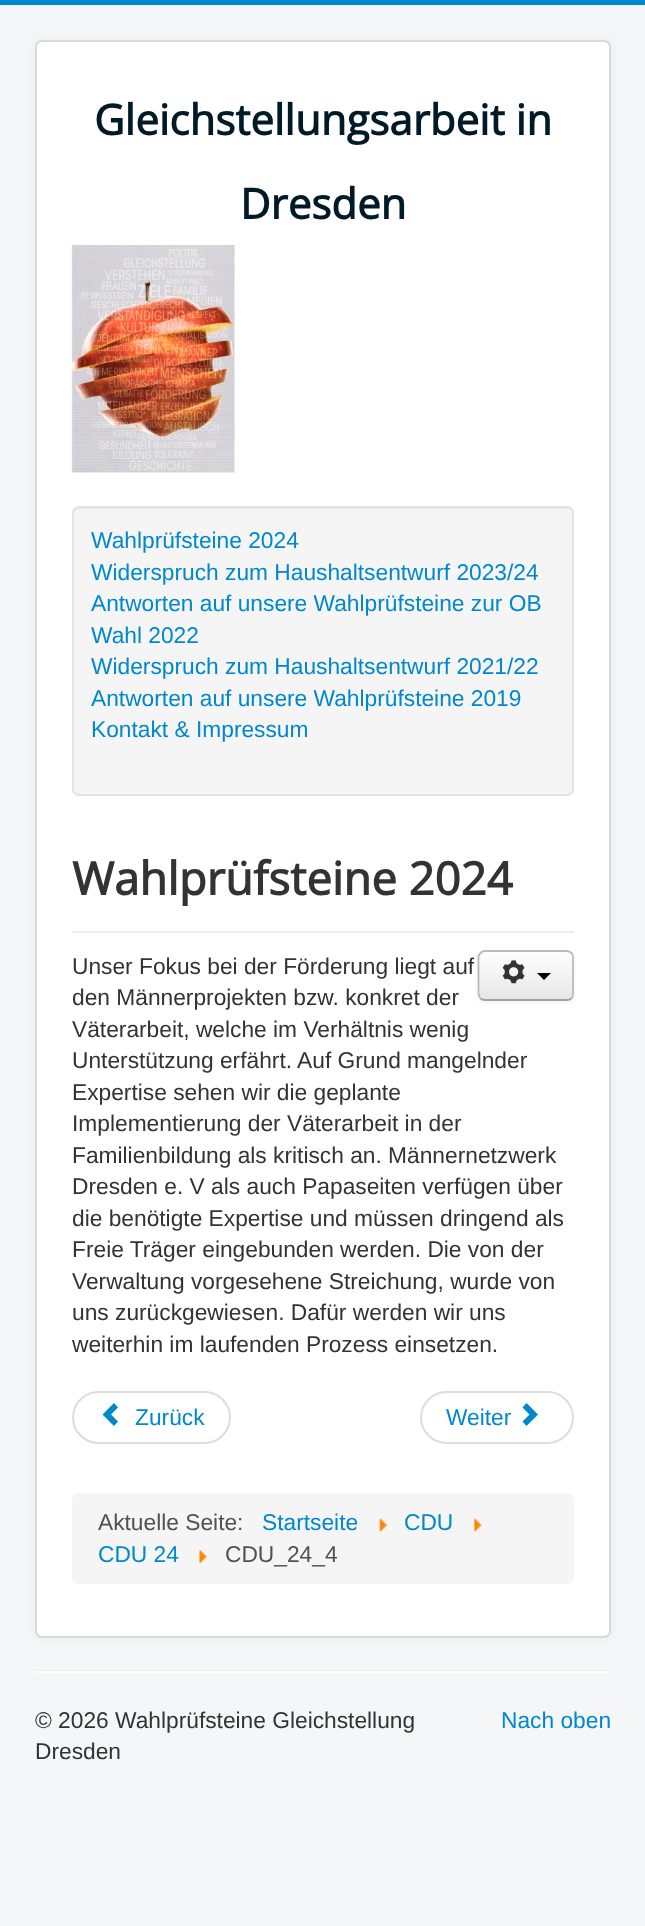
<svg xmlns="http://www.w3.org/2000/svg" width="645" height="1926">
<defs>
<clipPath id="clip1"><rect x="478" y="950" width="96" height="51" rx="7"/></clipPath>
<linearGradient id="g1" gradientUnits="userSpaceOnUse" x1="526" y1="952" x2="526" y2="999"><stop offset="0" stop-color="#fff"/><stop offset="1" stop-color="#e6e6e6"/></linearGradient>
</defs>
<rect width="100%" height="100%" fill="#f4f6f7"/>
<rect width="645" height="5" fill="#08c"/>
<rect x="35" y="40" width="576" height="1598" rx="7" fill="#0000000d" filter="blur(5px)"/>
<rect x="35" y="40" width="576" height="1598" rx="7" fill="#fff"/>
<rect x="36" y="41" width="574" height="1596" rx="6" fill="none" stroke="#00000026" stroke-width="2"/>
<text x="94" y="135" style="font-family:Open Sans;font-size:42px;font-weight:bold;fill:#001a27">Gleichstellungsarbeit in</text>
<text x="240" y="219" style="font-family:Open Sans;font-size:42px;font-weight:bold;fill:#001a27">Dresden</text>
<image x="71" y="245" width="164" height="228" href="media/1.png"/>
<rect x="72" y="506" width="502" height="290" rx="7" fill="#f5f5f5"/>
<path d="M79 509h488c3 0 5 3 5 5v-1c0-3-2-5-5-5h-488c-3 0-5 2-5 5v1c0-2 2-5 5-5z" fill="#e9e9e9"/>
<rect x="73" y="507" width="500" height="288" rx="6" fill="none" stroke="#e3e3e3" stroke-width="2"/>
<text x="91" y="548" style="font-family:Liberation Sans;font-size:22.75px;fill:#08c">Wahlprüfsteine 2024</text>
<text x="91" y="580" style="font-family:Liberation Sans;font-size:22.75px;fill:#08c">Widerspruch zum Haushaltsentwurf 2023/24</text>
<text x="91" y="611" style="font-family:Liberation Sans;font-size:22.75px;fill:#08c">Antworten auf unsere Wahlprüfsteine zur OB</text>
<text x="91" y="643" style="font-family:Liberation Sans;font-size:22.75px;fill:#08c">Wahl 2022</text>
<text x="91" y="674" style="font-family:Liberation Sans;font-size:22.75px;fill:#08c">Widerspruch zum Haushaltsentwurf 2021/22</text>
<text x="91" y="706" style="font-family:Liberation Sans;font-size:22.75px;fill:#08c">Antworten auf unsere Wahlprüfsteine 2019</text>
<text x="91" y="737" style="font-family:Liberation Sans;font-size:22.75px;fill:#08c">Kontakt &amp; Impressum</text>
<rect x="72" y="931" width="502" height="2" fill="#eee"/>
<text x="72" y="895" style="font-family:Open Sans;font-size:45.5px;font-weight:bold;fill:#333">Wahlprüfsteine 2024</text>
<rect x="478" y="952" width="96" height="51" rx="7" fill="#0000000d" filter="blur(2px)"/>
<rect x="478" y="950" width="96" height="51" rx="7" fill="#f5f5f5"/>
<g clip-path="url(#clip1)">
<rect x="478" y="952" width="96" height="47" fill="url(#g1)"/>
</g>
<path d="M571.5 998.5c-1.5 1-3 1.5-4.5 1.5h-82c-2 0-3.5-.5-4.5-1.5" fill="none" stroke="#a2a2a2" stroke-width="1.8"/>
<path d="M480.5 998.5c-1-1.5-2-3-2-4.5v-37c0-1.5 1-3 2-4c1-1 2.5-2 4.5-2h82c1.5 0 3 1 4.5 2c1 1 1.5 2.5 1.5 4v37c0 1.5-.5 3-1.5 4.5" fill="none" stroke="#bbb" stroke-width="1.8"/>
<image x="502" y="960" width="23" height="24" href="media/2.png"/>
<path d="M537 973h14l-7 7z" fill="#000"/>
<text x="72" y="974" style="font-family:Liberation Sans;font-size:22.75px;fill:#333">Unser Fokus bei der Förderung liegt auf</text>
<text x="72" y="1005" style="font-family:Liberation Sans;font-size:22.75px;fill:#333">den Männerprojekten bzw. konkret der</text>
<text x="72" y="1037" style="font-family:Liberation Sans;font-size:22.75px;fill:#333">Väterarbeit, welche im Verhältnis wenig</text>
<text x="72" y="1068" style="font-family:Liberation Sans;font-size:22.75px;fill:#333">Unterstützung erfährt. Auf Grund mangelnder</text>
<text x="72" y="1100" style="font-family:Liberation Sans;font-size:22.75px;fill:#333">Expertise sehen wir die geplante</text>
<text x="72" y="1131" style="font-family:Liberation Sans;font-size:22.75px;fill:#333">Implementierung der Väterarbeit in der</text>
<text x="72" y="1163" style="font-family:Liberation Sans;font-size:22.75px;fill:#333">Familienbildung als kritisch an. Männernetzwerk</text>
<text x="72" y="1194" style="font-family:Liberation Sans;font-size:22.75px;fill:#333">Dresden e. V als auch Papaseiten verfügen über</text>
<text x="72" y="1226" style="font-family:Liberation Sans;font-size:22.75px;fill:#333">die benötigte Expertise und müssen dringend als</text>
<text x="72" y="1257" style="font-family:Liberation Sans;font-size:22.75px;fill:#333">Freie Träger eingebunden werden. Die von der</text>
<text x="72" y="1289" style="font-family:Liberation Sans;font-size:22.75px;fill:#333">Verwaltung vorgesehene Streichung, wurde von</text>
<text x="72" y="1320" style="font-family:Liberation Sans;font-size:22.75px;fill:#333">uns zurückgewiesen. Dafür werden wir uns</text>
<text x="72" y="1352" style="font-family:Liberation Sans;font-size:22.75px;fill:#333">weiterhin im laufenden Prozess einsetzen.</text>
<rect x="73" y="1392" width="157" height="51" rx="25.5" fill="none" stroke="#ddd" stroke-width="2"/>
<path d="M114 1426l-11.5-11.5l11.5-11.5l4 4.5l-7 7l7 7z" fill="#08c"/>
<text x="135" y="1425" style="font-family:Liberation Sans;font-size:22.75px;fill:#08c">Zurück</text>
<rect x="421" y="1392" width="152" height="51" rx="25.5" fill="none" stroke="#ddd" stroke-width="2"/>
<text x="446" y="1425" style="font-family:Liberation Sans;font-size:22.75px;fill:#08c">Weiter</text>
<path d="M526.5 1403l11.5 11.5l-11.5 11.5l-4-4.5l7-7l-7-7z" fill="#08c"/>
<rect x="72" y="1493" width="502" height="91" rx="7" fill="#f5f5f5"/>
<text x="98" y="1530" style="font-family:Liberation Sans;font-size:22.75px;fill:#515151">Aktuelle Seite:</text>
<text x="262" y="1530" style="font-family:Liberation Sans;font-size:22.75px;fill:#08c">Startseite</text>
<image x="379" y="1518" width="9" height="14" href="media/3.png"/>
<text x="404" y="1530" style="font-family:Liberation Sans;font-size:22.75px;fill:#08c">CDU</text>
<image x="473" y="1518" width="9" height="14" href="media/4.png"/>
<text x="98" y="1562" style="font-family:Liberation Sans;font-size:22.75px;fill:#08c">CDU 24</text>
<image x="199" y="1550" width="8" height="13" href="media/5.png"/>
<text x="225" y="1562" style="font-family:Liberation Sans;font-size:22.75px;fill:#515151">CDU_24_4</text>
<rect x="35" y="1670" width="576" height="1" fill="#eee"/>
<rect x="35" y="1671" width="576" height="2" fill="#fff"/>
<text x="35" y="1728" style="font-family:Liberation Sans;font-size:22.75px;fill:#333">© 2026 Wahlprüfsteine Gleichstellung</text>
<text x="35" y="1759" style="font-family:Liberation Sans;font-size:22.75px;fill:#333">Dresden</text>
<text x="501" y="1728" style="font-family:Liberation Sans;font-size:22.75px;fill:#08c">Nach oben</text>
</svg>
